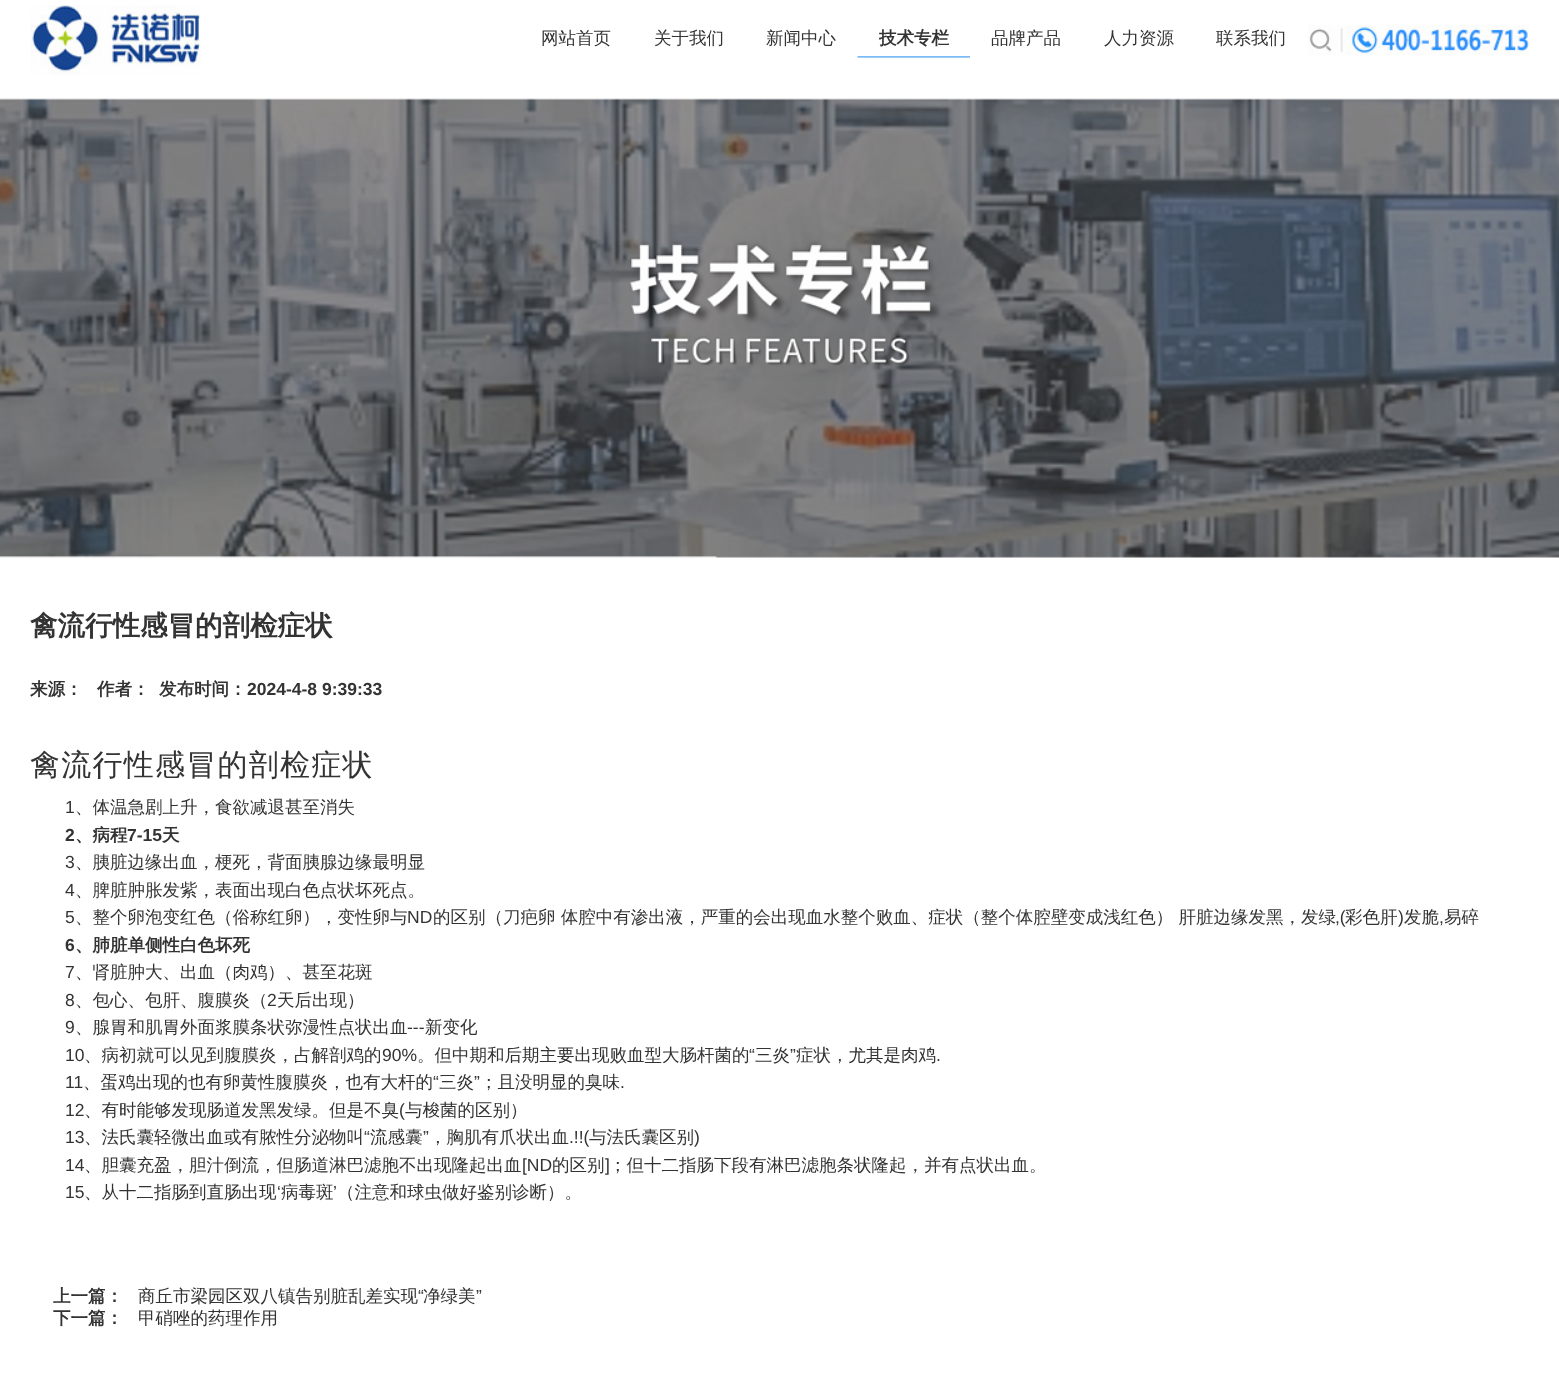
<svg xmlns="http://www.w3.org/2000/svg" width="1559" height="1389">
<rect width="100%" height="100%" fill="#fff"/>
<image x="30" y="5" width="171" height="70" href="media/1.png"/>
<text x="541" y="44" style="font-family:WenQuanYi Zen Hei;font-size:17.5px;font-weight:500;fill:#333">网站首页</text>
<text x="654" y="44" style="font-family:WenQuanYi Zen Hei;font-size:17.5px;font-weight:500;fill:#333">关于我们</text>
<text x="766" y="44" style="font-family:WenQuanYi Zen Hei;font-size:17.5px;font-weight:500;fill:#333">新闻中心</text>
<image x="857" y="56" width="113" height="2" href="media/2.png"/>
<text x="879" y="44" style="font-family:WenQuanYi Zen Hei;font-size:17.5px;font-weight:bold;fill:#333">技术专栏</text>
<text x="991" y="44" style="font-family:WenQuanYi Zen Hei;font-size:17.5px;font-weight:500;fill:#333">品牌产品</text>
<text x="1104" y="44" style="font-family:WenQuanYi Zen Hei;font-size:17.5px;font-weight:500;fill:#333">人力资源</text>
<text x="1216" y="44" style="font-family:WenQuanYi Zen Hei;font-size:17.5px;font-weight:500;fill:#333">联系我们</text>
<image x="1308" y="25" width="222" height="30" href="media/3.png"/>
<image x="0" y="98" width="1559" height="460" href="media/4.png"/>
<text x="30" y="635" style="font-family:WenQuanYi Zen Hei;font-size:27.5px;font-weight:bold;fill:#333">禽流行性感冒的剖检症状</text>
<text x="30" y="695" style="font-family:WenQuanYi Zen Hei;font-size:17.5px;font-weight:bold;fill:#333">来源：</text>
<text x="97" y="695" style="font-family:WenQuanYi Zen Hei;font-size:17.5px;font-weight:bold;fill:#333">作者：</text>
<text x="159" y="695" style="font-family:WenQuanYi Zen Hei;font-size:17.5px;font-weight:bold;fill:#333">发布时间：</text>
<text x="247" y="695" style="font-family:Liberation Sans;font-size:17.5px;font-weight:bold;fill:#333">2024-4-8 9:39:33</text>
<text x="30" y="775" style="font-family:WenQuanYi Zen Hei;font-size:30px;font-weight:500;letter-spacing:1.25px;fill:#333">禽流行性感冒的剖检症状</text>
<text x="65" y="813" style="font-family:Liberation Sans;font-size:17.5px;fill:#333">1</text>
<text x="75" y="813" style="font-family:WenQuanYi Zen Hei;font-size:17.5px;font-weight:500;fill:#333">、体温急剧上升，食欲减退甚至消失</text>
<text x="65" y="841" style="font-family:Liberation Sans;font-size:17.5px;font-weight:bold;fill:#333">2</text>
<text x="75" y="841" style="font-family:WenQuanYi Zen Hei;font-size:17.5px;font-weight:bold;fill:#333">、病程</text>
<text x="127" y="841" style="font-family:Liberation Sans;font-size:17.5px;font-weight:bold;fill:#333">7-15</text>
<text x="162" y="841" style="font-family:WenQuanYi Zen Hei;font-size:17.5px;font-weight:bold;fill:#333">天</text>
<text x="65" y="868" style="font-family:Liberation Sans;font-size:17.5px;fill:#333">3</text>
<text x="75" y="868" style="font-family:WenQuanYi Zen Hei;font-size:17.5px;font-weight:500;fill:#333">、胰脏边缘出血，梗死，背面胰腺边缘最明显</text>
<text x="65" y="896" style="font-family:Liberation Sans;font-size:17.5px;fill:#333">4</text>
<text x="75" y="896" style="font-family:WenQuanYi Zen Hei;font-size:17.5px;font-weight:500;fill:#333">、脾脏肿胀发紫，表面出现白色点状坏死点。</text>
<text x="65" y="923" style="font-family:Liberation Sans;font-size:17.5px;fill:#333">5</text>
<text x="75" y="923" style="font-family:WenQuanYi Zen Hei;font-size:17.5px;font-weight:500;fill:#333">、整个卵泡变红色（俗称红卵），变性卵与</text>
<text x="407" y="923" style="font-family:Liberation Sans;font-size:17.5px;fill:#333">ND</text>
<text x="433" y="923" style="font-family:WenQuanYi Zen Hei;font-size:17.5px;font-weight:500;fill:#333">的区别（刀疤卵 体腔中有渗出液，严重的会出现血水整个败血、症状（整个体腔壁变成浅红色） 肝脏边缘发黑，发绿</text>
<text x="1335" y="923" style="font-family:Liberation Sans;font-size:17.5px;fill:#333">,(</text>
<text x="1345" y="923" style="font-family:WenQuanYi Zen Hei;font-size:17.5px;font-weight:500;fill:#333">彩色肝</text>
<text x="1398" y="923" style="font-family:Liberation Sans;font-size:17.5px;fill:#333">)</text>
<text x="1404" y="923" style="font-family:WenQuanYi Zen Hei;font-size:17.5px;font-weight:500;fill:#333">发脆</text>
<text x="1439" y="923" style="font-family:Liberation Sans;font-size:17.5px;fill:#333">,</text>
<text x="1444" y="923" style="font-family:WenQuanYi Zen Hei;font-size:17.5px;font-weight:500;fill:#333">易碎</text>
<text x="65" y="951" style="font-family:Liberation Sans;font-size:17.5px;font-weight:bold;fill:#333">6</text>
<text x="75" y="951" style="font-family:WenQuanYi Zen Hei;font-size:17.5px;font-weight:bold;fill:#333">、肺脏单侧性白色坏死</text>
<text x="65" y="978" style="font-family:Liberation Sans;font-size:17.5px;fill:#333">7</text>
<text x="75" y="978" style="font-family:WenQuanYi Zen Hei;font-size:17.5px;font-weight:500;fill:#333">、肾脏肿大、出血（肉鸡）、甚至花斑</text>
<text x="65" y="1006" style="font-family:Liberation Sans;font-size:17.5px;fill:#333">8</text>
<text x="75" y="1006" style="font-family:WenQuanYi Zen Hei;font-size:17.5px;font-weight:500;fill:#333">、包心、包肝、腹膜炎（</text>
<text x="267" y="1006" style="font-family:Liberation Sans;font-size:17.5px;fill:#333">2</text>
<text x="277" y="1006" style="font-family:WenQuanYi Zen Hei;font-size:17.5px;font-weight:500;fill:#333">天后出现）</text>
<text x="65" y="1033" style="font-family:Liberation Sans;font-size:17.5px;fill:#333">9</text>
<text x="75" y="1033" style="font-family:WenQuanYi Zen Hei;font-size:17.5px;font-weight:500;fill:#333">、腺胃和肌胃外面浆膜条状弥漫性点状出血</text>
<text x="407" y="1033" style="font-family:Liberation Sans;font-size:17.5px;fill:#333">---</text>
<text x="425" y="1033" style="font-family:WenQuanYi Zen Hei;font-size:17.5px;font-weight:500;fill:#333">新变化</text>
<text x="65" y="1061" style="font-family:Liberation Sans;font-size:17.5px;fill:#333">10</text>
<text x="84" y="1061" style="font-family:WenQuanYi Zen Hei;font-size:17.5px;font-weight:500;fill:#333">、病初就可以见到腹膜炎，占解剖鸡的</text>
<text x="382" y="1061" style="font-family:Liberation Sans;font-size:17.5px;fill:#333">90%</text>
<text x="417" y="1061" style="font-family:WenQuanYi Zen Hei;font-size:17.5px;font-weight:500;fill:#333">。但中期和后期主要出现败血型大肠杆菌的</text>
<text x="749" y="1061" style="font-family:Liberation Sans;font-size:17.5px;fill:#333">“</text>
<text x="755" y="1061" style="font-family:WenQuanYi Zen Hei;font-size:17.5px;font-weight:500;fill:#333">三炎</text>
<text x="790" y="1061" style="font-family:Liberation Sans;font-size:17.5px;fill:#333">”</text>
<text x="796" y="1061" style="font-family:WenQuanYi Zen Hei;font-size:17.5px;font-weight:500;fill:#333">症状，尤其是肉鸡</text>
<text x="936" y="1061" style="font-family:Liberation Sans;font-size:17.5px;fill:#333">.</text>
<text x="65" y="1088" style="font-family:Liberation Sans;font-size:17.5px;fill:#333">11</text>
<text x="83" y="1088" style="font-family:WenQuanYi Zen Hei;font-size:17.5px;font-weight:500;fill:#333">、蛋鸡出现的也有卵黄性腹膜炎，也有大杆的</text>
<text x="433" y="1088" style="font-family:Liberation Sans;font-size:17.5px;fill:#333">“</text>
<text x="439" y="1088" style="font-family:WenQuanYi Zen Hei;font-size:17.5px;font-weight:500;fill:#333">三炎</text>
<text x="474" y="1088" style="font-family:Liberation Sans;font-size:17.5px;fill:#333">”</text>
<text x="480" y="1088" style="font-family:WenQuanYi Zen Hei;font-size:17.5px;font-weight:500;fill:#333">；且没明显的臭味</text>
<text x="620" y="1088" style="font-family:Liberation Sans;font-size:17.5px;fill:#333">.</text>
<text x="65" y="1116" style="font-family:Liberation Sans;font-size:17.5px;fill:#333">12</text>
<text x="84" y="1116" style="font-family:WenQuanYi Zen Hei;font-size:17.5px;font-weight:500;fill:#333">、有时能够发现肠道发黑发绿。但是不臭</text>
<text x="399" y="1116" style="font-family:Liberation Sans;font-size:17.5px;fill:#333">(</text>
<text x="405" y="1116" style="font-family:WenQuanYi Zen Hei;font-size:17.5px;font-weight:500;fill:#333">与梭菌的区别）</text>
<text x="65" y="1143" style="font-family:Liberation Sans;font-size:17.5px;fill:#333">13</text>
<text x="84" y="1143" style="font-family:WenQuanYi Zen Hei;font-size:17.5px;font-weight:500;fill:#333">、法氏囊轻微出血或有脓性分泌物叫</text>
<text x="364" y="1143" style="font-family:Liberation Sans;font-size:17.5px;fill:#333">“</text>
<text x="370" y="1143" style="font-family:WenQuanYi Zen Hei;font-size:17.5px;font-weight:500;fill:#333">流感囊</text>
<text x="423" y="1143" style="font-family:Liberation Sans;font-size:17.5px;fill:#333">”</text>
<text x="429" y="1143" style="font-family:WenQuanYi Zen Hei;font-size:17.5px;font-weight:500;fill:#333">，胸肌有爪状出血</text>
<text x="569" y="1143" style="font-family:Liberation Sans;font-size:17.5px;fill:#333">.!!(</text>
<text x="589" y="1143" style="font-family:WenQuanYi Zen Hei;font-size:17.5px;font-weight:500;fill:#333">与法氏囊区别</text>
<text x="694" y="1143" style="font-family:Liberation Sans;font-size:17.5px;fill:#333">)</text>
<text x="65" y="1171" style="font-family:Liberation Sans;font-size:17.5px;fill:#333">14</text>
<text x="84" y="1171" style="font-family:WenQuanYi Zen Hei;font-size:17.5px;font-weight:500;fill:#333">、胆囊充盈，胆汁倒流，但肠道淋巴滤胞不出现隆起出血</text>
<text x="522" y="1171" style="font-family:Liberation Sans;font-size:17.5px;fill:#333">[ND</text>
<text x="552" y="1171" style="font-family:WenQuanYi Zen Hei;font-size:17.5px;font-weight:500;fill:#333">的区别</text>
<text x="605" y="1171" style="font-family:Liberation Sans;font-size:17.5px;fill:#333">]</text>
<text x="609" y="1171" style="font-family:WenQuanYi Zen Hei;font-size:17.5px;font-weight:500;fill:#333">；但十二指肠下段有淋巴滤胞条状隆起，并有点状出血。</text>
<text x="65" y="1198" style="font-family:Liberation Sans;font-size:17.5px;fill:#333">15</text>
<text x="84" y="1198" style="font-family:WenQuanYi Zen Hei;font-size:17.5px;font-weight:500;fill:#333">、从十二指肠到直肠出现</text>
<text x="277" y="1198" style="font-family:Liberation Sans;font-size:17.5px;fill:#333">‘</text>
<text x="281" y="1198" style="font-family:WenQuanYi Zen Hei;font-size:17.5px;font-weight:500;fill:#333">病毒斑</text>
<text x="333" y="1198" style="font-family:Liberation Sans;font-size:17.5px;fill:#333">’</text>
<text x="337" y="1198" style="font-family:WenQuanYi Zen Hei;font-size:17.5px;font-weight:500;fill:#333">（注意和球虫做好鉴别诊断）。</text>
<text x="53" y="1302" style="font-family:WenQuanYi Zen Hei;font-size:17.5px;font-weight:bold;fill:#333">上一篇：</text>
<text x="138" y="1302" style="font-family:WenQuanYi Zen Hei;font-size:17.5px;font-weight:500;fill:#333">商丘市梁园区双八镇告别脏乱差实现</text>
<text x="418" y="1302" style="font-family:Liberation Sans;font-size:17.5px;fill:#333">“</text>
<text x="423" y="1302" style="font-family:WenQuanYi Zen Hei;font-size:17.5px;font-weight:500;fill:#333">净绿美</text>
<text x="476" y="1302" style="font-family:Liberation Sans;font-size:17.5px;fill:#333">”</text>
<text x="53" y="1324" style="font-family:WenQuanYi Zen Hei;font-size:17.5px;font-weight:bold;fill:#333">下一篇：</text>
<text x="138" y="1324" style="font-family:WenQuanYi Zen Hei;font-size:17.5px;font-weight:500;fill:#333">甲硝唑的药理作用</text>
</svg>
